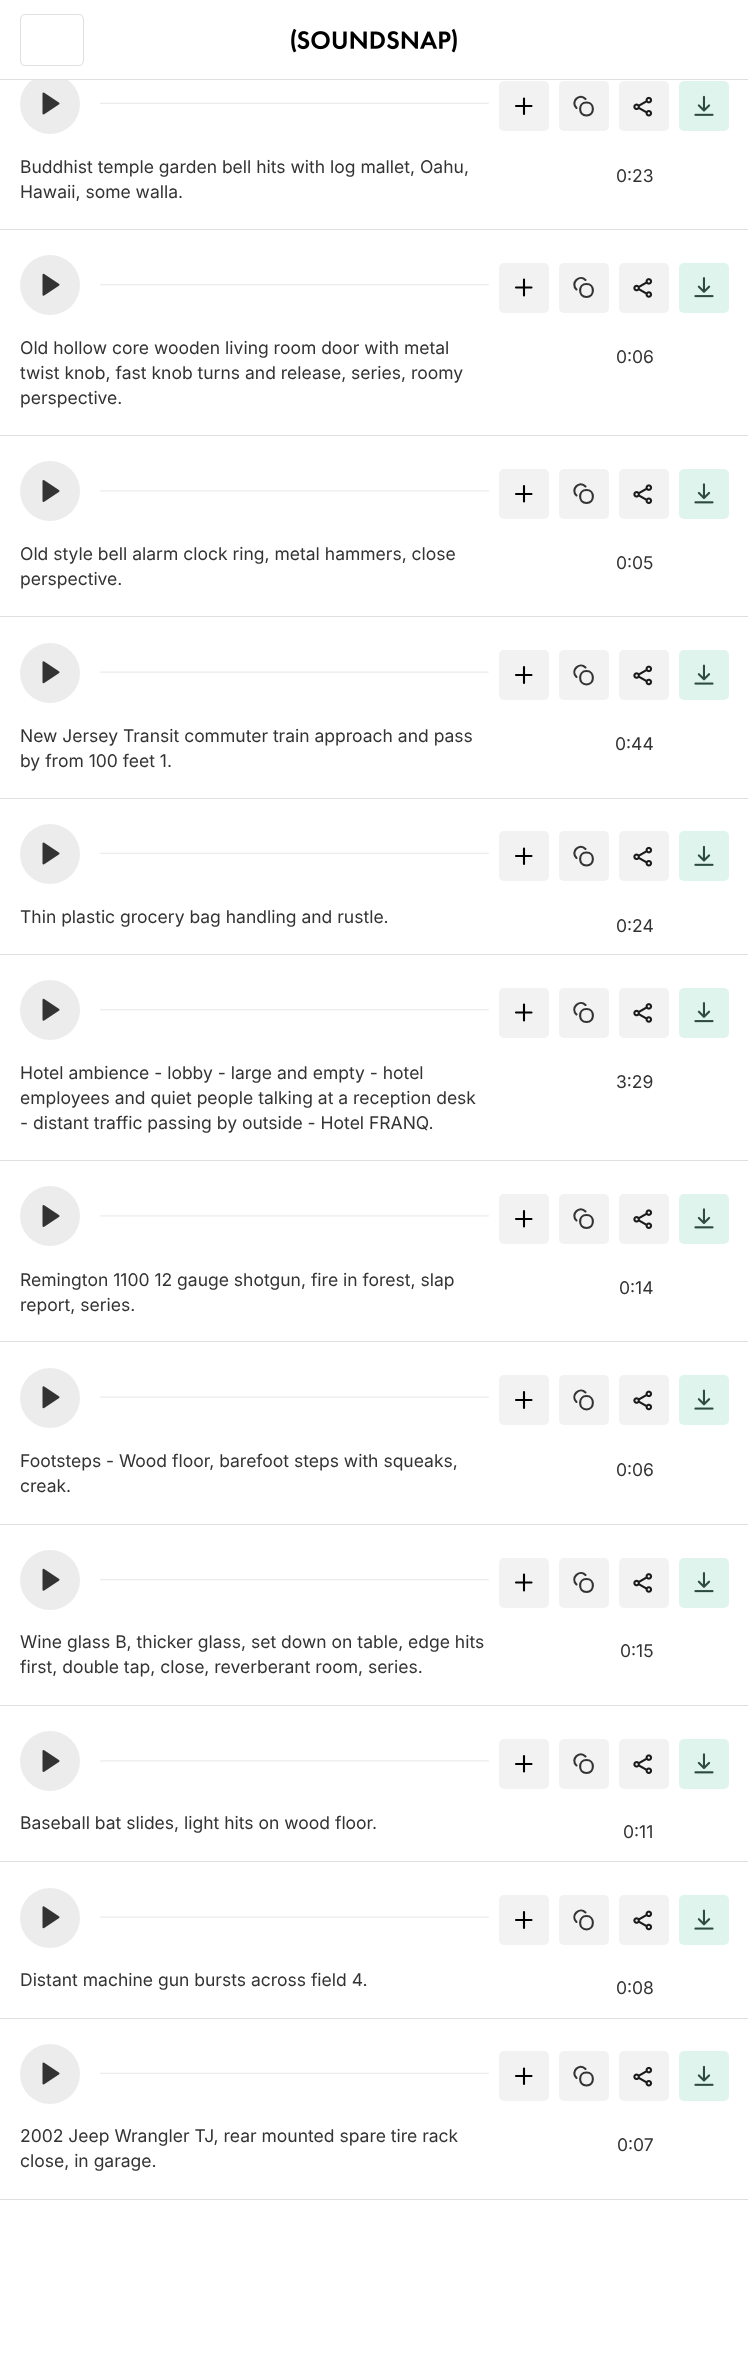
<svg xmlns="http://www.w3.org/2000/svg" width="748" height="2362">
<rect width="100%" height="100%" fill="#fff"/>
<circle cx="50" cy="104" r="30" fill="#ececec"/>
<rect x="34" y="74" width="32" height="5" fill="#fff"/>
<rect y="79" width="748" height="1" fill="#dfdfdf"/>
<rect x="20.5" y="14.5" width="63" height="51" rx="4.5" fill="none" stroke="#dfdfdf"/>
<image x="291" y="28" width="166" height="25" href="media/1.png"/>
<rect y="229" width="748" height="1" fill="#dfdfdf"/>
<image x="42" y="92" width="18" height="23" href="media/2.png"/>
<image x="100" y="102" width="389" height="2" href="media/3.png"/>
<rect x="499" y="81" width="50" height="50" rx="5" fill="#f2f2f2"/>
<path d="M524 98.5v15.5m7.5-8h-15.5" fill="none" stroke="#000" stroke-width="2.1" stroke-linecap="round"/>
<rect x="559" y="81" width="50" height="50" rx="5" fill="#f2f2f2"/>
<path d="M585.5 99c-6-6.5-15.5 3-9 9m10 7.5c8.5 0 8.5-13 0-13c-8.5 0-8.5 13 0 13z" fill="none" stroke="#333" stroke-width="2.1" stroke-linecap="round"/>
<rect x="619" y="81" width="50" height="50" rx="5" fill="#f2f2f2"/>
<image x="633" y="96" width="20" height="21" href="media/4.png"/>
<rect x="679" y="81" width="50" height="50" rx="5" fill="#e0f4ee"/>
<image x="694" y="95" width="20" height="21" href="media/5.png"/>
<text x="20" y="173" style="font-family:Inter;font-size:17.5px;fill:#333">Buddhist temple garden bell hits with log mallet, Oahu,</text>
<text x="20" y="198" style="font-family:Inter;font-size:17.5px;fill:#333">Hawaii, some walla.</text>
<text x="616" y="182" style="font-family:Inter;font-size:17.5px;fill:#333">0:23</text>
<rect y="435" width="748" height="1" fill="#dfdfdf"/>
<circle cx="50" cy="285" r="30" fill="#ececec"/>
<image x="42" y="273" width="18" height="23" href="media/6.png"/>
<image x="100" y="284" width="389" height="2" href="media/7.png"/>
<rect x="499" y="263" width="50" height="50" rx="5" fill="#f2f2f2"/>
<path d="M524 279.5v16m7.5-8h-15.5" fill="none" stroke="#000" stroke-width="2.1" stroke-linecap="round"/>
<rect x="559" y="263" width="50" height="50" rx="5" fill="#f2f2f2"/>
<path d="M585.5 280c-6-6-15.5 3-9 9.5m10 7.5c8.5 0 8.5-13 0-13c-8.5 0-8.5 13 0 13z" fill="none" stroke="#333" stroke-width="2.1" stroke-linecap="round"/>
<rect x="619" y="263" width="50" height="50" rx="5" fill="#f2f2f2"/>
<image x="633" y="278" width="20" height="20" href="media/8.png"/>
<rect x="679" y="263" width="50" height="50" rx="5" fill="#e0f4ee"/>
<image x="694" y="277" width="20" height="21" href="media/9.png"/>
<text x="20" y="354" style="font-family:Inter;font-size:17.5px;fill:#333">Old hollow core wooden living room door with metal</text>
<text x="20" y="379" style="font-family:Inter;font-size:17.5px;fill:#333">twist knob, fast knob turns and release, series, roomy</text>
<text x="20" y="404" style="font-family:Inter;font-size:17.5px;fill:#333">perspective.</text>
<text x="616" y="363" style="font-family:Inter;font-size:17.5px;fill:#333">0:06</text>
<rect y="616" width="748" height="1" fill="#dfdfdf"/>
<circle cx="50" cy="491" r="30" fill="#ececec"/>
<image x="42" y="480" width="18" height="22" href="media/10.png"/>
<image x="100" y="490" width="389" height="2" href="media/11.png"/>
<rect x="499" y="469" width="50" height="50" rx="5" fill="#f2f2f2"/>
<path d="M524 486v15.5m7.5-7.5h-15.5" fill="none" stroke="#000" stroke-width="2.1" stroke-linecap="round"/>
<rect x="559" y="469" width="50" height="50" rx="5" fill="#f2f2f2"/>
<path d="M585.5 486.5c-6-6.5-15.5 3-9 9m10 7.5c8.5 0 8.5-13 0-13c-8.5 0-8.5 13 0 13z" fill="none" stroke="#333" stroke-width="2.1" stroke-linecap="round"/>
<rect x="619" y="469" width="50" height="50" rx="5" fill="#f2f2f2"/>
<image x="633" y="484" width="20" height="20" href="media/12.png"/>
<rect x="679" y="469" width="50" height="50" rx="5" fill="#e0f4ee"/>
<image x="694" y="483" width="20" height="21" href="media/13.png"/>
<text x="20" y="560" style="font-family:Inter;font-size:17.5px;fill:#333">Old style bell alarm clock ring, metal hammers, close</text>
<text x="20" y="585" style="font-family:Inter;font-size:17.5px;fill:#333">perspective.</text>
<text x="616" y="569" style="font-family:Inter;font-size:17.5px;fill:#333">0:05</text>
<rect y="798" width="748" height="1" fill="#dfdfdf"/>
<circle cx="50" cy="673" r="30" fill="#ececec"/>
<image x="42" y="661" width="18" height="23" href="media/14.png"/>
<image x="100" y="671" width="389" height="2" href="media/15.png"/>
<rect x="499" y="650" width="50" height="50" rx="5" fill="#f2f2f2"/>
<path d="M524 667v16m7.5-8h-15.5" fill="none" stroke="#000" stroke-width="2.1" stroke-linecap="round"/>
<rect x="559" y="650" width="50" height="50" rx="5" fill="#f2f2f2"/>
<path d="M585.5 667.5c-6-6-15.5 3-9 9.5m10 7.5c8.5 0 8.5-13.5 0-13.5c-8.5 0-8.5 13.5 0 13.5z" fill="none" stroke="#333" stroke-width="2.1" stroke-linecap="round"/>
<rect x="619" y="650" width="50" height="50" rx="5" fill="#f2f2f2"/>
<image x="633" y="665" width="20" height="21" href="media/16.png"/>
<rect x="679" y="650" width="50" height="50" rx="5" fill="#e0f4ee"/>
<image x="694" y="664" width="20" height="21" href="media/17.png"/>
<text x="20" y="742" style="font-family:Inter;font-size:17.5px;fill:#333">New Jersey Transit commuter train approach and pass</text>
<text x="20" y="767" style="font-family:Inter;font-size:17.5px;fill:#333">by from 100 feet 1.</text>
<text x="615" y="750" style="font-family:Inter;font-size:17.5px;fill:#333">0:44</text>
<rect y="954" width="748" height="1" fill="#dfdfdf"/>
<circle cx="50" cy="854" r="30" fill="#ececec"/>
<image x="42" y="842" width="18" height="23" href="media/2.png"/>
<image x="100" y="852" width="389" height="2" href="media/3.png"/>
<rect x="499" y="831" width="50" height="50" rx="5" fill="#f2f2f2"/>
<path d="M524 848.5v15.5m7.5-8h-15.5" fill="none" stroke="#000" stroke-width="2.1" stroke-linecap="round"/>
<rect x="559" y="831" width="50" height="50" rx="5" fill="#f2f2f2"/>
<path d="M585.5 849c-6-6.5-15.5 3-9 9m10 7.5c8.5 0 8.5-13 0-13c-8.5 0-8.5 13 0 13z" fill="none" stroke="#333" stroke-width="2.1" stroke-linecap="round"/>
<rect x="619" y="831" width="50" height="50" rx="5" fill="#f2f2f2"/>
<image x="633" y="846" width="20" height="21" href="media/4.png"/>
<rect x="679" y="831" width="50" height="50" rx="5" fill="#e0f4ee"/>
<image x="694" y="845" width="20" height="21" href="media/5.png"/>
<text x="20" y="923" style="font-family:Inter;font-size:17.5px;fill:#333">Thin plastic grocery bag handling and rustle.</text>
<text x="616" y="932" style="font-family:Inter;font-size:17.5px;fill:#333">0:24</text>
<rect y="1160" width="748" height="1" fill="#dfdfdf"/>
<circle cx="50" cy="1010" r="30" fill="#ececec"/>
<image x="42" y="998" width="18" height="23" href="media/6.png"/>
<image x="100" y="1009" width="389" height="2" href="media/7.png"/>
<rect x="499" y="988" width="50" height="50" rx="5" fill="#f2f2f2"/>
<path d="M524 1004.5v16m7.5-8h-15.5" fill="none" stroke="#000" stroke-width="2.1" stroke-linecap="round"/>
<rect x="559" y="988" width="50" height="50" rx="5" fill="#f2f2f2"/>
<path d="M585.5 1005c-6-6-15.5 3-9 9.5m10 7.5c8.5 0 8.5-13 0-13c-8.5 0-8.5 13 0 13z" fill="none" stroke="#333" stroke-width="2.1" stroke-linecap="round"/>
<rect x="619" y="988" width="50" height="50" rx="5" fill="#f2f2f2"/>
<image x="633" y="1003" width="20" height="20" href="media/8.png"/>
<rect x="679" y="988" width="50" height="50" rx="5" fill="#e0f4ee"/>
<image x="694" y="1002" width="20" height="21" href="media/9.png"/>
<text x="20" y="1079" style="font-family:Inter;font-size:17.5px;fill:#333">Hotel ambience - lobby - large and empty - hotel</text>
<text x="20" y="1104" style="font-family:Inter;font-size:17.5px;fill:#333">employees and quiet people talking at a reception desk</text>
<text x="20" y="1129" style="font-family:Inter;font-size:17.5px;fill:#333">- distant traffic passing by outside - Hotel FRANQ.</text>
<text x="616" y="1088" style="font-family:Inter;font-size:17.5px;fill:#333">3:29</text>
<rect y="1341" width="748" height="1" fill="#dfdfdf"/>
<circle cx="50" cy="1216" r="30" fill="#ececec"/>
<image x="42" y="1205" width="18" height="22" href="media/10.png"/>
<image x="100" y="1215" width="389" height="2" href="media/11.png"/>
<rect x="499" y="1194" width="50" height="50" rx="5" fill="#f2f2f2"/>
<path d="M524 1211v15.5m7.5-7.5h-15.5" fill="none" stroke="#000" stroke-width="2.1" stroke-linecap="round"/>
<rect x="559" y="1194" width="50" height="50" rx="5" fill="#f2f2f2"/>
<path d="M585.5 1211.5c-6-6.5-15.5 3-9 9m10 7.5c8.5 0 8.5-13 0-13c-8.5 0-8.5 13 0 13z" fill="none" stroke="#333" stroke-width="2.1" stroke-linecap="round"/>
<rect x="619" y="1194" width="50" height="50" rx="5" fill="#f2f2f2"/>
<image x="633" y="1209" width="20" height="20" href="media/12.png"/>
<rect x="679" y="1194" width="50" height="50" rx="5" fill="#e0f4ee"/>
<image x="694" y="1208" width="20" height="21" href="media/13.png"/>
<text x="20" y="1286" style="font-family:Inter;font-size:17.5px;fill:#333">Remington 1100 12 gauge shotgun, fire in forest, slap</text>
<text x="20" y="1311" style="font-family:Inter;font-size:17.5px;fill:#333">report, series.</text>
<text x="619" y="1294" style="font-family:Inter;font-size:17.5px;fill:#333">0:14</text>
<rect y="1524" width="748" height="1" fill="#dfdfdf"/>
<circle cx="50" cy="1398" r="30" fill="#ececec"/>
<image x="42" y="1386" width="18" height="23" href="media/14.png"/>
<image x="100" y="1396" width="389" height="2" href="media/15.png"/>
<rect x="499" y="1375" width="50" height="50" rx="5" fill="#f2f2f2"/>
<path d="M524 1392v16m7.5-8h-15.5" fill="none" stroke="#000" stroke-width="2.1" stroke-linecap="round"/>
<rect x="559" y="1375" width="50" height="50" rx="5" fill="#f2f2f2"/>
<path d="M585.5 1392.5c-6-6-15.5 3-9 9.5m10 7.5c8.5 0 8.5-13.5 0-13.5c-8.5 0-8.5 13.5 0 13.5z" fill="none" stroke="#333" stroke-width="2.1" stroke-linecap="round"/>
<rect x="619" y="1375" width="50" height="50" rx="5" fill="#f2f2f2"/>
<image x="633" y="1390" width="20" height="21" href="media/16.png"/>
<rect x="679" y="1375" width="50" height="50" rx="5" fill="#e0f4ee"/>
<image x="694" y="1389" width="20" height="21" href="media/17.png"/>
<text x="20" y="1467" style="font-family:Inter;font-size:17.5px;fill:#333">Footsteps - Wood floor, barefoot steps with squeaks,</text>
<text x="20" y="1492" style="font-family:Inter;font-size:17.5px;fill:#333">creak.</text>
<text x="616" y="1476" style="font-family:Inter;font-size:17.5px;fill:#333">0:06</text>
<rect y="1705" width="748" height="1" fill="#dfdfdf"/>
<circle cx="50" cy="1580" r="30" fill="#ececec"/>
<image x="42" y="1568" width="18" height="23" href="media/6.png"/>
<image x="100" y="1579" width="389" height="2" href="media/7.png"/>
<rect x="499" y="1558" width="50" height="50" rx="5" fill="#f2f2f2"/>
<path d="M524 1574.5v16m7.5-8h-15.5" fill="none" stroke="#000" stroke-width="2.1" stroke-linecap="round"/>
<rect x="559" y="1558" width="50" height="50" rx="5" fill="#f2f2f2"/>
<path d="M585.5 1575c-6-6-15.5 3-9 9.5m10 7.5c8.5 0 8.5-13 0-13c-8.5 0-8.5 13 0 13z" fill="none" stroke="#333" stroke-width="2.1" stroke-linecap="round"/>
<rect x="619" y="1558" width="50" height="50" rx="5" fill="#f2f2f2"/>
<image x="633" y="1573" width="20" height="20" href="media/8.png"/>
<rect x="679" y="1558" width="50" height="50" rx="5" fill="#e0f4ee"/>
<image x="694" y="1572" width="20" height="21" href="media/9.png"/>
<text x="20" y="1648" style="font-family:Inter;font-size:17.5px;fill:#333">Wine glass B, thicker glass, set down on table, edge hits</text>
<text x="20" y="1673" style="font-family:Inter;font-size:17.5px;fill:#333">first, double tap, close, reverberant room, series.</text>
<text x="620" y="1657" style="font-family:Inter;font-size:17.5px;fill:#333">0:15</text>
<rect y="1861" width="748" height="1" fill="#dfdfdf"/>
<circle cx="50" cy="1761" r="30" fill="#ececec"/>
<image x="42" y="1750" width="18" height="22" href="media/10.png"/>
<image x="100" y="1760" width="389" height="2" href="media/11.png"/>
<rect x="499" y="1739" width="50" height="50" rx="5" fill="#f2f2f2"/>
<path d="M524 1756v15.5m7.5-7.5h-15.5" fill="none" stroke="#000" stroke-width="2.1" stroke-linecap="round"/>
<rect x="559" y="1739" width="50" height="50" rx="5" fill="#f2f2f2"/>
<path d="M585.5 1756.5c-6-6.5-15.5 3-9 9m10 7.5c8.5 0 8.5-13 0-13c-8.5 0-8.5 13 0 13z" fill="none" stroke="#333" stroke-width="2.1" stroke-linecap="round"/>
<rect x="619" y="1739" width="50" height="50" rx="5" fill="#f2f2f2"/>
<image x="633" y="1754" width="20" height="20" href="media/12.png"/>
<rect x="679" y="1739" width="50" height="50" rx="5" fill="#e0f4ee"/>
<image x="694" y="1753" width="20" height="21" href="media/13.png"/>
<text x="20" y="1829" style="font-family:Inter;font-size:17.5px;fill:#333">Baseball bat slides, light hits on wood floor.</text>
<text x="623" y="1838" style="font-family:Inter;font-size:17.5px;fill:#333">0:11</text>
<rect y="2018" width="748" height="1" fill="#dfdfdf"/>
<circle cx="50" cy="1918" r="30" fill="#ececec"/>
<image x="42" y="1906" width="18" height="23" href="media/14.png"/>
<image x="100" y="1916" width="389" height="2" href="media/15.png"/>
<rect x="499" y="1895" width="50" height="50" rx="5" fill="#f2f2f2"/>
<path d="M524 1912v16m7.5-8h-15.5" fill="none" stroke="#000" stroke-width="2.1" stroke-linecap="round"/>
<rect x="559" y="1895" width="50" height="50" rx="5" fill="#f2f2f2"/>
<path d="M585.5 1912.5c-6-6-15.5 3-9 9.5m10 7.5c8.5 0 8.5-13.5 0-13.5c-8.5 0-8.5 13.5 0 13.5z" fill="none" stroke="#333" stroke-width="2.1" stroke-linecap="round"/>
<rect x="619" y="1895" width="50" height="50" rx="5" fill="#f2f2f2"/>
<image x="633" y="1910" width="20" height="21" href="media/16.png"/>
<rect x="679" y="1895" width="50" height="50" rx="5" fill="#e0f4ee"/>
<image x="694" y="1909" width="20" height="21" href="media/17.png"/>
<text x="20" y="1986" style="font-family:Inter;font-size:17.5px;fill:#333">Distant machine gun bursts across field 4.</text>
<text x="616" y="1994" style="font-family:Inter;font-size:17.5px;fill:#333">0:08</text>
<rect y="2199" width="748" height="1" fill="#dfdfdf"/>
<circle cx="50" cy="2074" r="30" fill="#ececec"/>
<image x="42" y="2062" width="18" height="23" href="media/2.png"/>
<image x="100" y="2072" width="389" height="2" href="media/3.png"/>
<rect x="499" y="2051" width="50" height="50" rx="5" fill="#f2f2f2"/>
<path d="M524 2068.5v15.5m7.5-8h-15.5" fill="none" stroke="#000" stroke-width="2.1" stroke-linecap="round"/>
<rect x="559" y="2051" width="50" height="50" rx="5" fill="#f2f2f2"/>
<path d="M585.5 2069c-6-6.5-15.5 3-9 9m10 7.5c8.5 0 8.5-13 0-13c-8.5 0-8.5 13 0 13z" fill="none" stroke="#333" stroke-width="2.1" stroke-linecap="round"/>
<rect x="619" y="2051" width="50" height="50" rx="5" fill="#f2f2f2"/>
<image x="633" y="2066" width="20" height="21" href="media/4.png"/>
<rect x="679" y="2051" width="50" height="50" rx="5" fill="#e0f4ee"/>
<image x="694" y="2065" width="20" height="21" href="media/5.png"/>
<text x="20" y="2142" style="font-family:Inter;font-size:17.5px;fill:#333">2002 Jeep Wrangler TJ, rear mounted spare tire rack</text>
<text x="20" y="2167" style="font-family:Inter;font-size:17.5px;fill:#333">close, in garage.</text>
<text x="617" y="2151" style="font-family:Inter;font-size:17.5px;fill:#333">0:07</text>
</svg>
